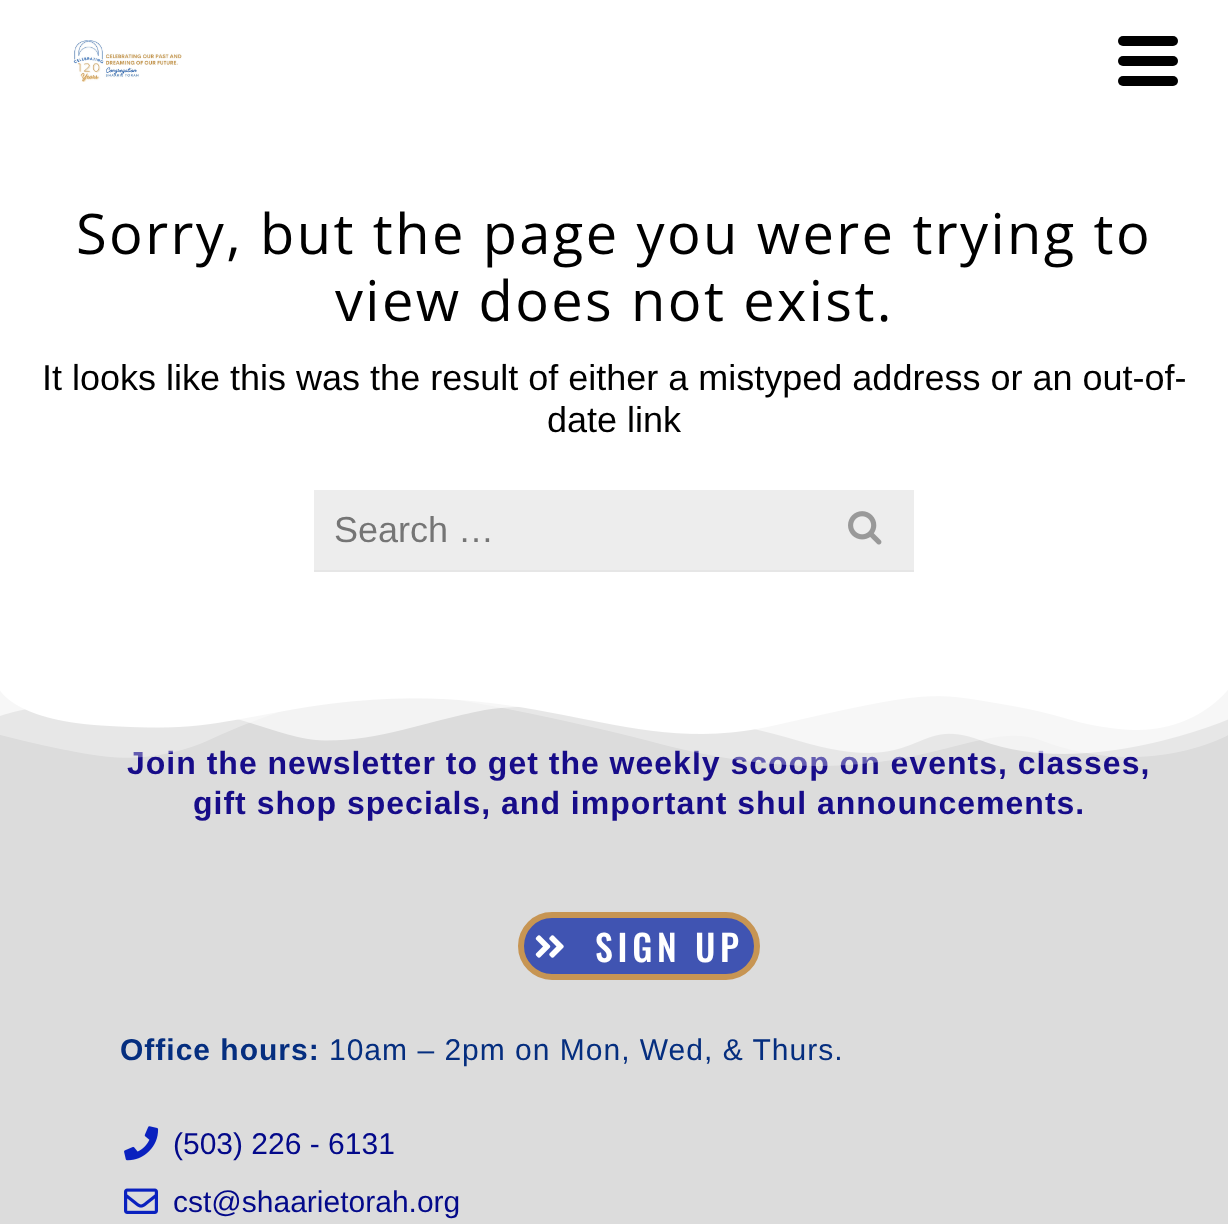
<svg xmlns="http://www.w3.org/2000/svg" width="1228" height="1224">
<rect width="100%" height="100%" fill="#fff"/>
<image x="73" y="40" width="109" height="42" href="media/1.png"/>
<rect x="1118" y="36" width="60" height="10" rx="5" fill="#000"/>
<rect x="1118" y="56" width="60" height="10" rx="5" fill="#000"/>
<rect x="1118" y="76" width="60" height="10" rx="5" fill="#000"/>
<text x="76" y="254" style="font-family:Open Sans;font-size:56px;letter-spacing:2.4px;fill:#000">Sorry, but the page you were trying to</text>
<text x="335" y="321" style="font-family:Open Sans;font-size:56px;letter-spacing:2.4px;fill:#000">view does not exist.</text>
<text x="42" y="390" style="font-family:Liberation Sans;font-size:36px;fill:#000">It looks like this was the result of either a mistyped address or an out-of-</text>
<text x="547" y="432" style="font-family:Liberation Sans;font-size:36px;fill:#000">date link</text>
<rect x="314" y="570" width="600" height="2" fill="#e6e6e6"/>
<rect x="314" y="490" width="600" height="80" fill="#ededed"/>
<text x="334" y="542" style="font-family:Liberation Sans;font-size:36px;fill:#757575">Search …</text>
<image x="848" y="511" width="34" height="34" href="media/2.png"/>
<rect y="690" width="1228" height="534" fill="#dcdcdc"/>
<text x="127" y="774" style="font-family:Liberation Sans;font-size:32px;font-weight:bold;letter-spacing:1px;fill:#170c89">Join the newsletter to get the weekly scoop on events, classes,</text>
<image x="0" y="690" width="1228" height="76" href="media/3.png"/>
<text x="193" y="814" style="font-family:Liberation Sans;font-size:32px;font-weight:bold;letter-spacing:1px;fill:#170c89">gift shop specials, and important shul announcements.</text>
<rect x="521" y="915" width="236" height="62" rx="31" fill="#4054b2" stroke="#c79553" stroke-width="6"/>
<image x="535" y="935" width="29" height="23" href="media/4.png"/>
<text x="595" y="962" style="font-family:Oswald;font-size:36px;font-weight:500;letter-spacing:4.75px;fill:#fff">SIGN UP</text>
<text x="120" y="1060" style="font-family:Liberation Sans;font-size:30px;font-weight:bold;letter-spacing:1px;fill:#052e7f">Office hours:</text>
<text x="329" y="1060" style="font-family:Liberation Sans;font-size:30px;letter-spacing:1px;fill:#052e7f">10am – 2pm on Mon, Wed, &amp; Thurs.</text>
<image x="124" y="1126" width="35" height="35" href="media/5.png"/>
<text x="173" y="1154" style="font-family:Liberation Sans;font-size:30px;fill:#03098a">(503) 226 - 6131</text>
<image x="124" y="1188" width="34" height="26" href="media/6.png"/>
<text x="173" y="1212" style="font-family:Liberation Sans;font-size:30px;fill:#03098a">cst@shaarietorah.org</text>
</svg>
